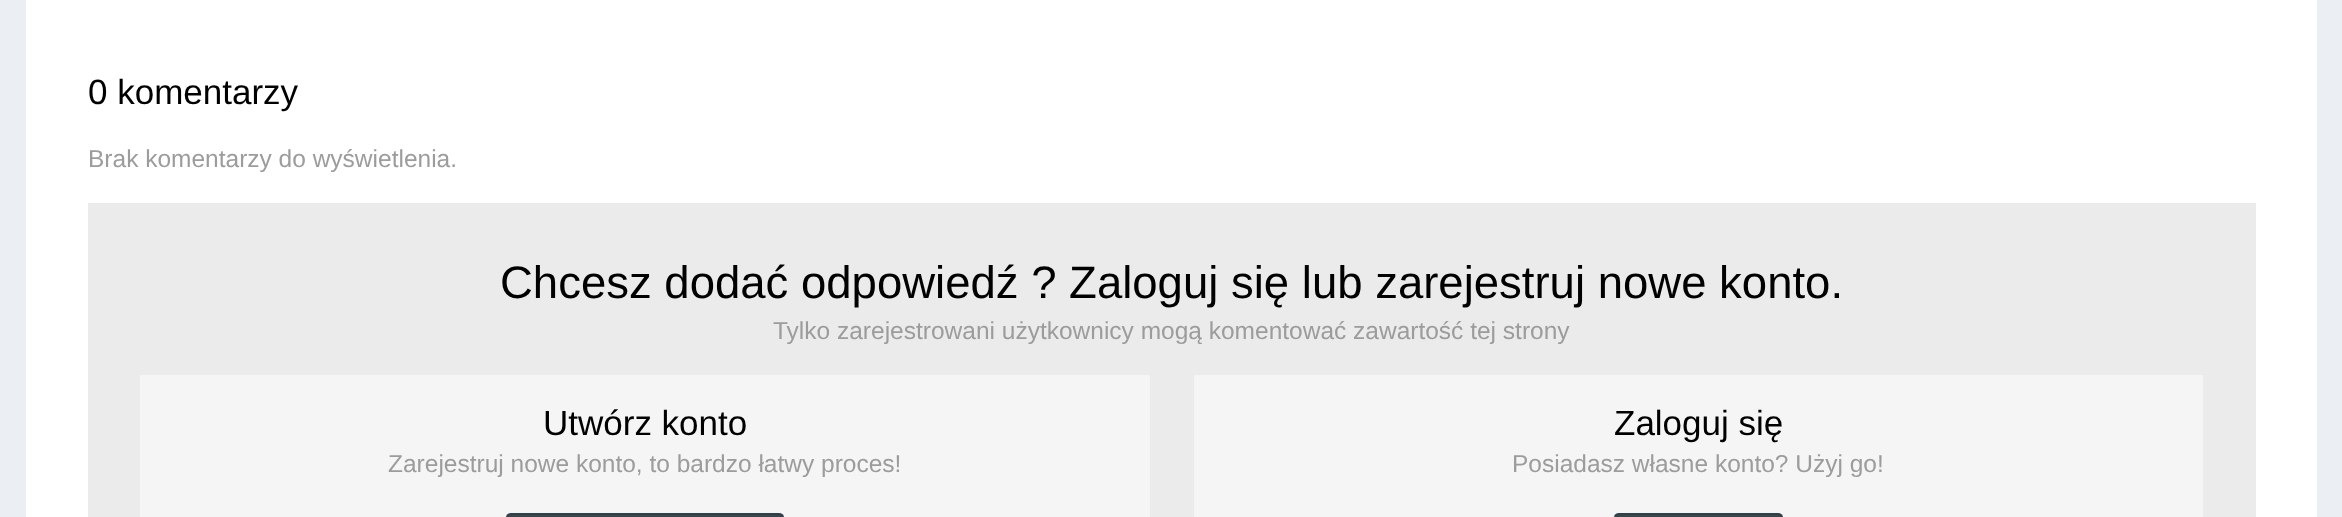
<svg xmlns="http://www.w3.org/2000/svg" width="2342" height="517">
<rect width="100%" height="100%" fill="#ebeef2"/>
<rect x="26" width="2291" height="517" fill="#fff"/>
<text x="88" y="104" style="font-family:Liberation Sans;font-size:35px;fill:#000">0 komentarzy</text>
<text x="88" y="167" style="font-family:Liberation Sans;font-size:24.5px;fill:#9c9c9c">Brak komentarzy do wyświetlenia.</text>
<rect x="88" y="203" width="2168" height="314" fill="#ebebeb"/>
<text x="500" y="298" style="font-family:Liberation Sans;font-size:45.5px;fill:#000">Chcesz dodać odpowiedź ? Zaloguj się lub zarejestruj nowe konto.</text>
<text x="773" y="339" style="font-family:Liberation Sans;font-size:24.5px;fill:#9c9c9c">Tylko zarejestrowani użytkownicy mogą komentować zawartość tej strony</text>
<rect x="140" y="375" width="1010" height="142" fill="#f5f5f5"/>
<text x="543" y="435" style="font-family:Liberation Sans;font-size:35px;fill:#000">Utwórz konto</text>
<text x="388" y="472" style="font-family:Liberation Sans;font-size:24.5px;fill:#9c9c9c">Zarejestruj nowe konto, to bardzo łatwy proces!</text>
<rect x="506" y="513" width="278" height="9" rx="5" fill="#37474f"/>
<rect x="507" y="514" width="276" height="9" rx="4" fill="none" stroke="#0000001a" stroke-width="2"/>
<rect x="1194" y="375" width="1009" height="142" fill="#f5f5f5"/>
<text x="1614" y="435" style="font-family:Liberation Sans;font-size:35px;fill:#000">Zaloguj się</text>
<text x="1512" y="472" style="font-family:Liberation Sans;font-size:24.5px;fill:#9c9c9c">Posiadasz własne konto? Użyj go!</text>
<rect x="1614" y="513" width="169" height="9" rx="5" fill="#37474f"/>
<rect x="1615" y="514" width="167" height="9" rx="4" fill="none" stroke="#0000001a" stroke-width="2"/>
</svg>
